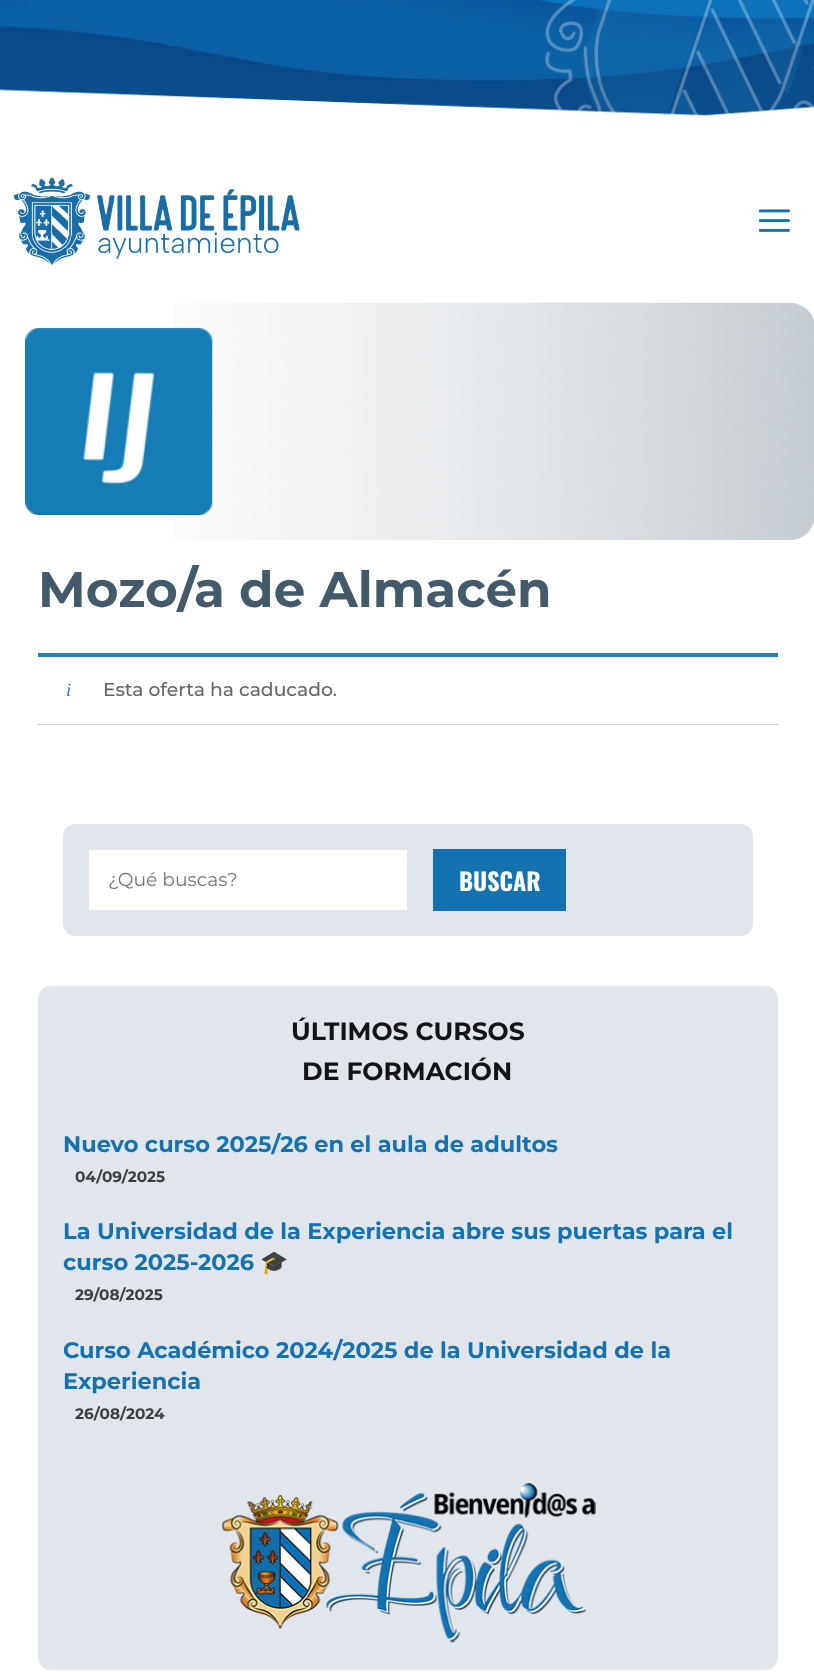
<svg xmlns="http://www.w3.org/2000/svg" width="814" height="1675">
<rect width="100%" height="100%" fill="#fff"/>
<image x="0" y="0" width="814" height="116" href="media/1.png"/>
<image x="13" y="177" width="287" height="89" href="media/2.png"/>
<image x="759" y="209" width="31" height="23" href="media/3.png"/>
<image x="174" y="302" width="640" height="238" href="media/4.png"/>
<image x="25" y="327" width="188" height="189" href="media/5.png"/>
<text x="38" y="607" style="font-family:Montserrat;font-size:50px;font-weight:bold;fill:#435a6b">Mozo/a de Almacén</text>
<rect x="38" y="654" width="740" height="71" fill="#00000033" filter="blur(0.5px)"/>
<rect x="38" y="657" width="740" height="67" fill="#fff"/>
<rect x="38" y="653" width="740" height="4" fill="#1e85be"/>
<text x="66" y="696" style="font-family:Liberation Serif;font-size:18.75px;font-style:italic;fill:#1e85be">i</text>
<text x="103" y="696" style="font-family:Montserrat;font-size:18.75px;font-weight:500;fill:#666">Esta oferta ha caducado.</text>
<rect x="63" y="824" width="690" height="112" rx="13" fill="#e1e6ed"/>
<rect x="89" y="850" width="318" height="60" fill="#fff"/>
<text x="108" y="886" style="font-family:Montserrat;font-size:18.75px;fill:#757575">¿Qué buscas?</text>
<rect x="433" y="849" width="133" height="62" fill="#1572b0"/>
<text x="459" y="891" style="font-family:Oswald;font-size:24px;font-weight:bold;fill:#fff">BUSCAR</text>
<rect x="38" y="986" width="740" height="684" rx="13" fill="#e1e6ed"/>
<text x="291" y="1040" style="font-family:Montserrat;font-size:25px;font-weight:bold;fill:#141414">ÚLTIMOS CURSOS</text>
<text x="302" y="1080" style="font-family:Montserrat;font-size:25px;font-weight:bold;fill:#141414">DE FORMACIÓN</text>
<text x="63" y="1152" style="font-family:Montserrat;font-size:22.5px;font-weight:bold;fill:#1572b0">Nuevo curso 2025/26 en el aula de adultos</text>
<text x="75" y="1182" style="font-family:Montserrat;font-size:15.25px;font-weight:bold;fill:#3e3e3e">04/09/2025</text>
<text x="63" y="1239" style="font-family:Montserrat;font-size:22.5px;font-weight:bold;fill:#1572b0">La Universidad de la Experiencia abre sus puertas para el</text>
<text x="63" y="1270" style="font-family:Montserrat;font-size:22.5px;font-weight:bold;fill:#1572b0">curso 2025-2026</text>
<text x="260" y="1270" style="font-family:Noto Color Emoji;font-size:22.5px;font-weight:bold;fill:#1572b0">🎓</text>
<text x="75" y="1300" style="font-family:Montserrat;font-size:15.25px;font-weight:bold;fill:#3e3e3e">29/08/2025</text>
<text x="63" y="1358" style="font-family:Montserrat;font-size:22.5px;font-weight:bold;fill:#1572b0">Curso Académico 2024/2025 de la Universidad de la</text>
<text x="63" y="1389" style="font-family:Montserrat;font-size:22.5px;font-weight:bold;fill:#1572b0">Experiencia</text>
<text x="75" y="1419" style="font-family:Montserrat;font-size:15.25px;font-weight:bold;fill:#3e3e3e">26/08/2024</text>
<image x="222" y="1483" width="374" height="160" href="media/6.png"/>
</svg>
